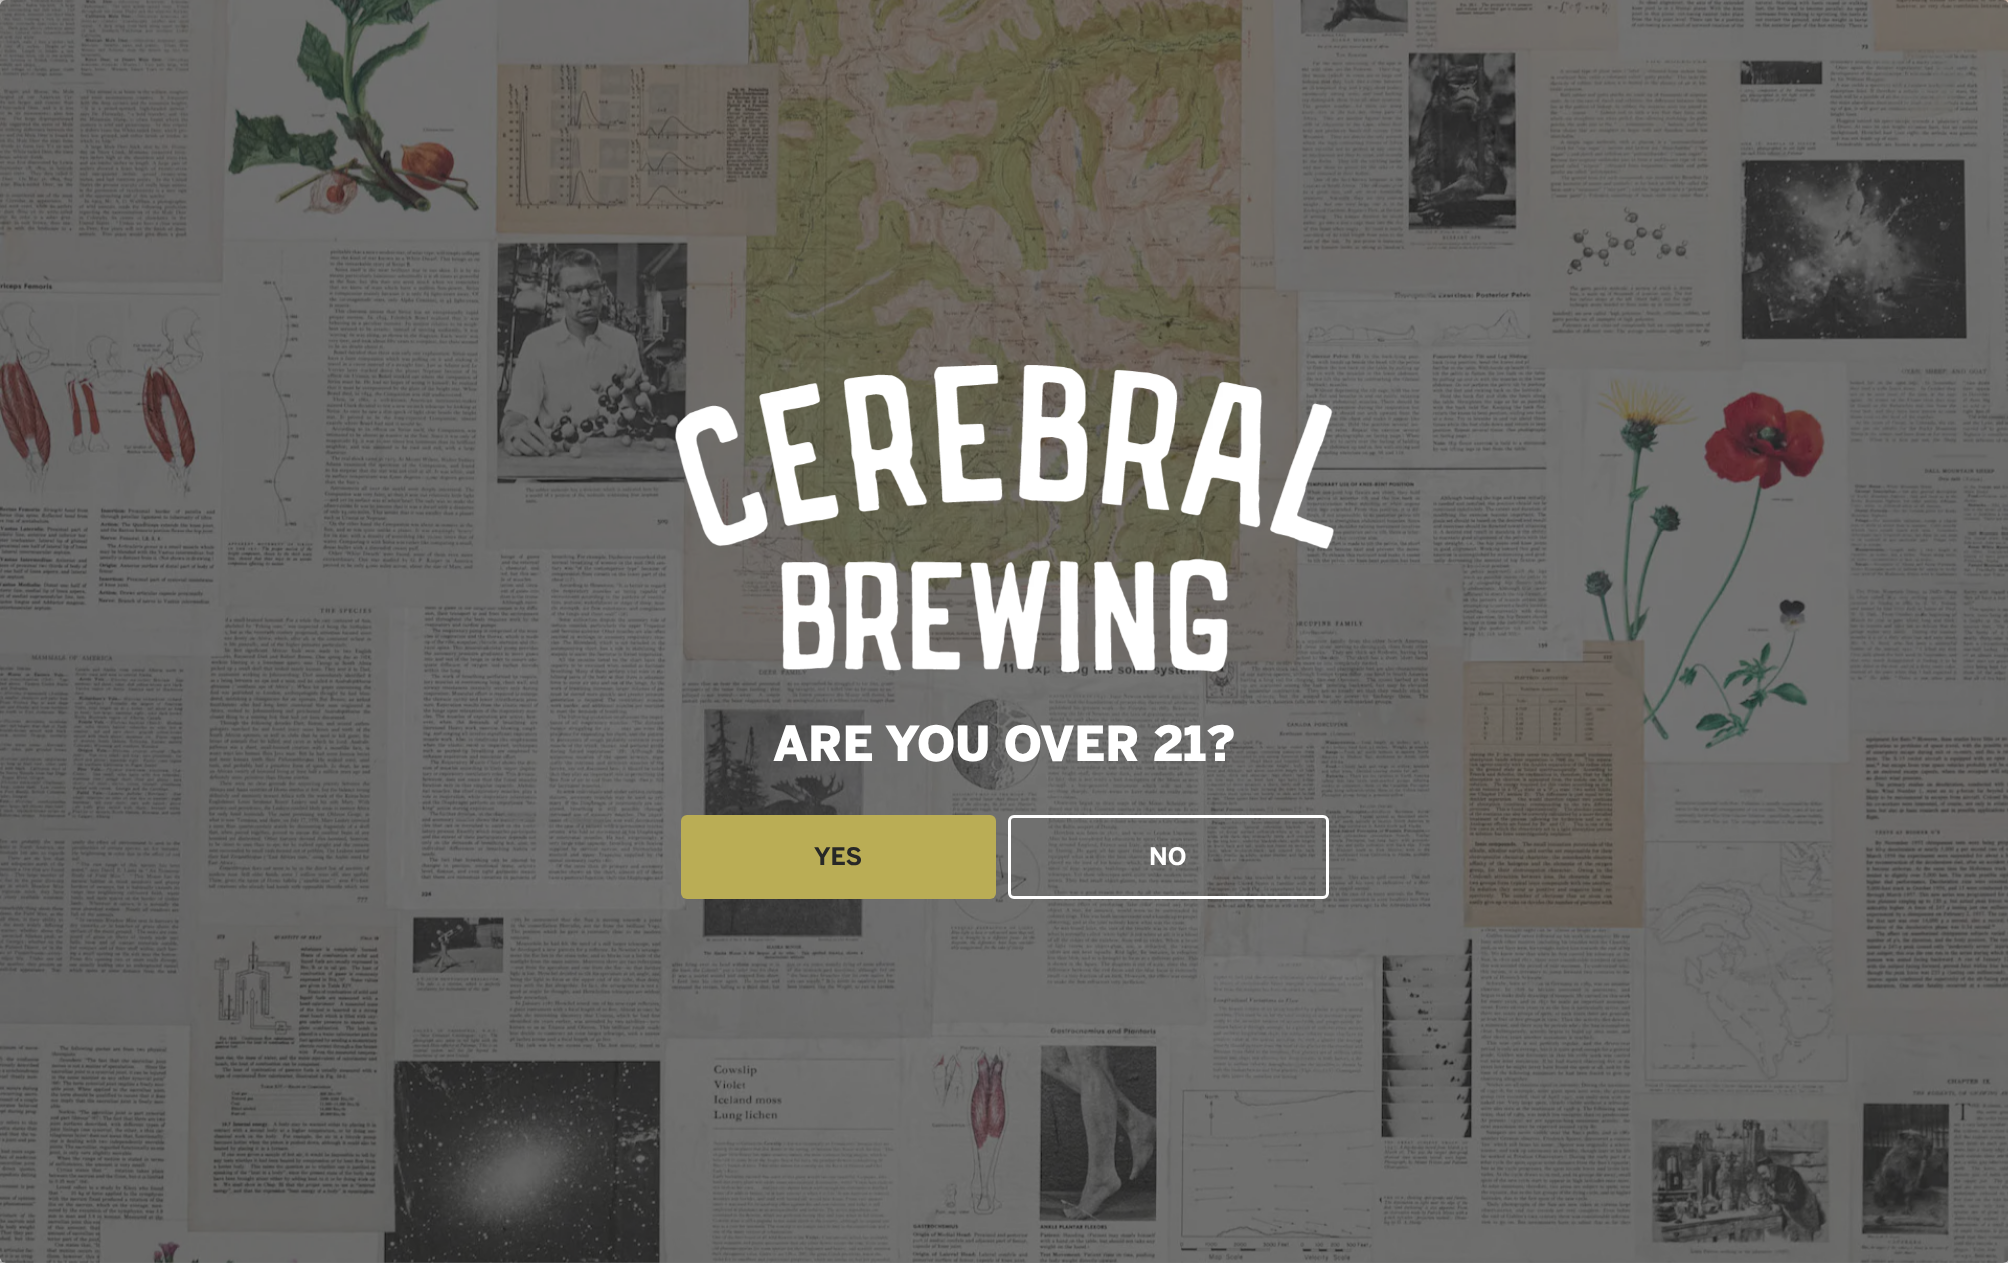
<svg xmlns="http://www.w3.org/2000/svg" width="2008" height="1263">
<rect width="100%" height="100%" fill="#fff"/>
<image x="0" y="0" width="2008" height="1263" href="media/1.png"/>
<rect width="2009" height="1263" rx="6" fill="#28282799"/>
<image x="675" y="365" width="659" height="308" href="media/2.png"/>
<text x="773" y="761" style="font-family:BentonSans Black;font-size:48px;font-weight:900;fill:#fff">ARE YOU OVER 21?</text>
<rect x="681" y="815" width="315" height="84" rx="6" fill="#baad55"/>
<text x="814" y="865" style="font-family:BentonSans;font-size:24px;font-weight:bold;fill:#282827">YES</text>
<rect x="1009.5" y="816.5" width="318" height="81" rx="4.5" fill="none" stroke="#fff" stroke-width="3"/>
<text x="1149" y="865" style="font-family:BentonSans;font-size:24px;font-weight:bold;fill:#fff">NO</text>
</svg>
